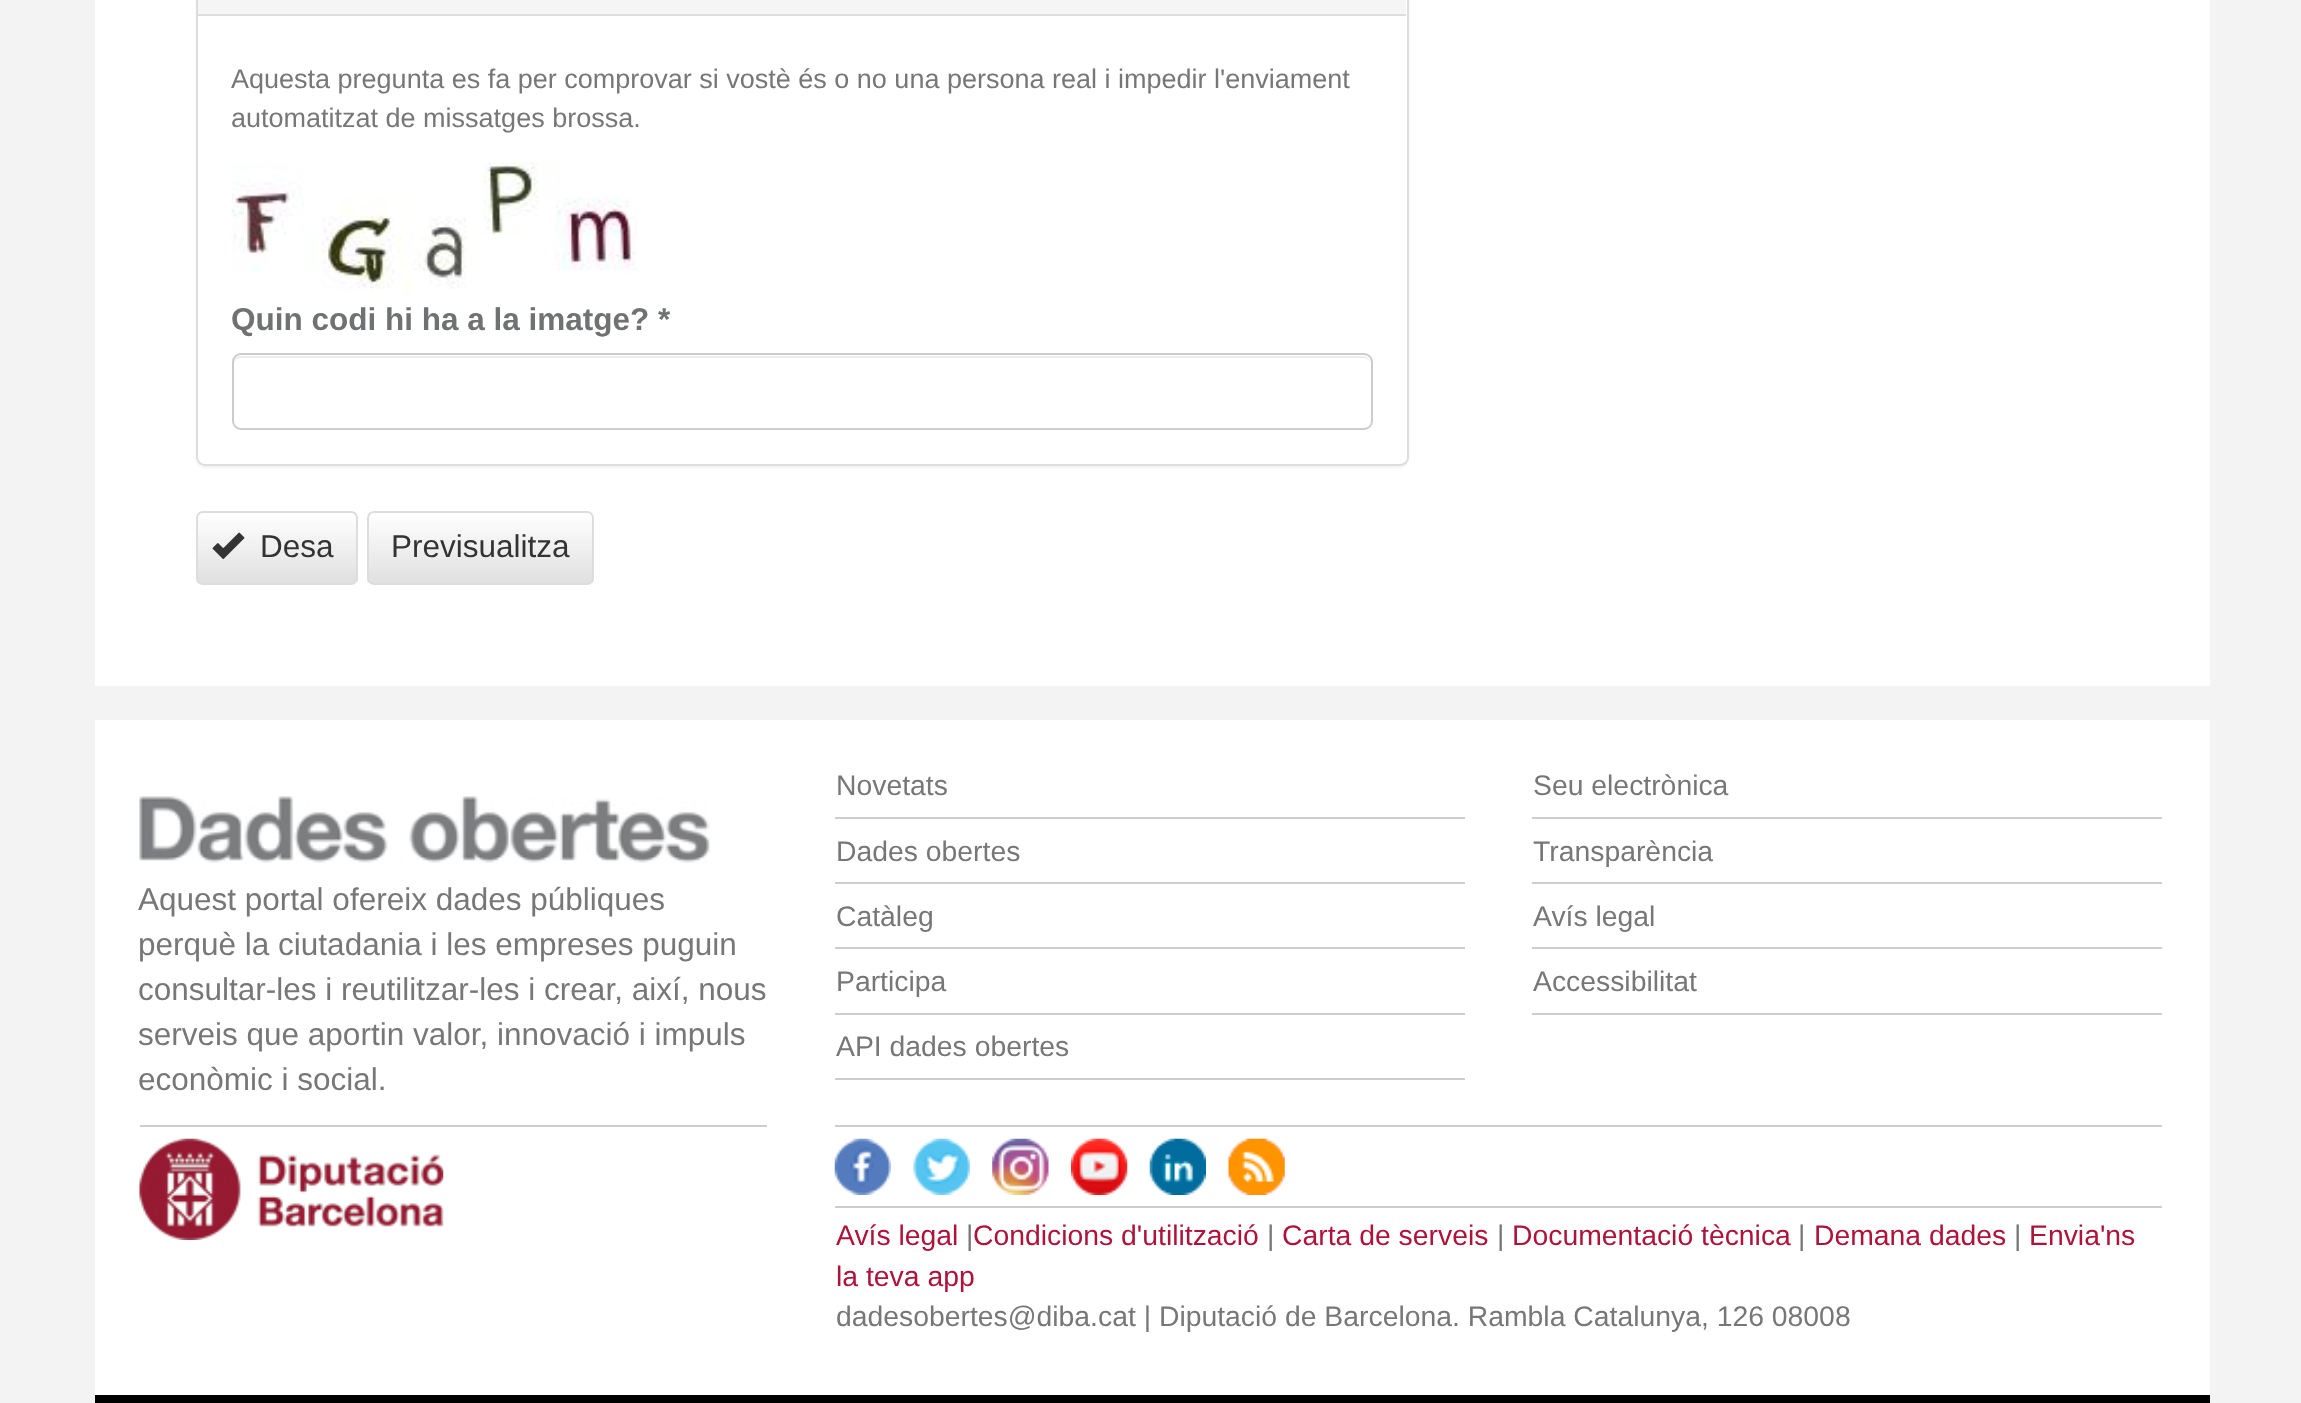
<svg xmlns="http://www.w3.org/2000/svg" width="2301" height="1403">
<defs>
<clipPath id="clip1"><rect x="196" y="511" width="162" height="74" rx="7"/></clipPath>
<linearGradient id="g1" gradientUnits="userSpaceOnUse" x1="277" y1="513" x2="277" y2="583"><stop offset="0" stop-color="#fff"/><stop offset="1" stop-color="#e0e0e0"/></linearGradient>
<clipPath id="clip2"><rect x="367" y="511" width="227" height="74" rx="7"/></clipPath>
<linearGradient id="g2" gradientUnits="userSpaceOnUse" x1="480" y1="513" x2="480" y2="583"><stop offset="0" stop-color="#fff"/><stop offset="1" stop-color="#e0e0e0"/></linearGradient>
</defs>
<rect width="100%" height="100%" fill="#f3f3f4"/>
<rect x="95" width="2115" height="686" fill="#fff"/>
<rect x="196" y="-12" width="1213" height="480" rx="9" fill="#0000000d" filter="blur(1px)"/>
<rect x="197" y="-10" width="1211" height="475" rx="8" fill="#fff" stroke="#ddd" stroke-width="2"/>
<rect x="198" width="1208" height="14" fill="#f5f5f5"/>
<rect x="198" y="14" width="1208" height="2" fill="#ddd"/>
<text x="231" y="88" style="font-family:Liberation Sans;font-size:27px;fill:#777">Aquesta pregunta es fa per comprovar si vostè és o no una persona real i impedir l'enviament</text>
<text x="231" y="127" style="font-family:Liberation Sans;font-size:27px;fill:#777">automatitzat de missatges brossa.</text>
<image x="231" y="162" width="406" height="132" href="media/1.png"/>
<text x="231" y="330" style="font-family:Liberation Sans;font-size:31.5px;font-weight:bold;fill:#707173">Quin codi hi ha a la imatge? *</text>
<path d="M241 358h1123c3 0 6 3 6 6c0-4-2-8-7-8h-1122c-5 0-7 4-7 8c0-3 3-6 7-6z" fill="#ececec"/>
<rect x="233" y="354" width="1139" height="75" rx="8" fill="none" stroke="#ccc" stroke-width="2"/>
<g clip-path="url(#clip1)">
<rect x="196" y="513" width="162" height="70" fill="url(#g1)"/>
</g>
<rect x="197" y="512" width="160" height="72" rx="6" fill="none" stroke="#ddd" stroke-width="2"/>
<image x="212" y="532" width="33" height="27" href="media/2.png"/>
<text x="260" y="557" style="font-family:Liberation Sans;font-size:31.5px;fill:#333">Desa</text>
<g clip-path="url(#clip2)">
<rect x="367" y="513" width="227" height="70" fill="url(#g2)"/>
</g>
<rect x="368" y="512" width="225" height="72" rx="6" fill="none" stroke="#ddd" stroke-width="2"/>
<text x="391" y="557" style="font-family:Liberation Sans;font-size:31.5px;fill:#333">Previsualitza</text>
<rect x="95" y="720" width="2115" height="675" fill="#fff"/>
<rect x="95" y="1395" width="2115" height="8" fill="#000"/>
<image x="139" y="796" width="572" height="67" href="media/3.png"/>
<text x="138" y="910" style="font-family:Liberation Sans;font-size:31.5px;fill:#777">Aquest portal ofereix dades públiques</text>
<text x="138" y="955" style="font-family:Liberation Sans;font-size:31.5px;fill:#777">perquè la ciutadania i les empreses puguin</text>
<text x="138" y="1000" style="font-family:Liberation Sans;font-size:31.5px;fill:#777">consultar-les i reutilitzar-les i crear, així, nous</text>
<text x="138" y="1045" style="font-family:Liberation Sans;font-size:31.5px;fill:#777">serveis que aportin valor, innovació i impuls</text>
<text x="138" y="1090" style="font-family:Liberation Sans;font-size:31.5px;fill:#777">econòmic i social.</text>
<rect x="140" y="1125" width="627" height="2" fill="#cdcdce"/>
<image x="139" y="1138" width="305" height="102" href="media/4.png"/>
<rect x="835" y="817" width="630" height="2" fill="#cdcdce"/>
<text x="836" y="795" style="font-family:Liberation Sans;font-size:28.35px;fill:#777">Novetats</text>
<rect x="835" y="882" width="630" height="2" fill="#cdcdce"/>
<text x="836" y="861" style="font-family:Liberation Sans;font-size:28.35px;fill:#777">Dades obertes</text>
<rect x="835" y="947" width="630" height="2" fill="#cdcdce"/>
<text x="836" y="926" style="font-family:Liberation Sans;font-size:28.35px;fill:#777">Catàleg</text>
<rect x="835" y="1013" width="630" height="2" fill="#cdcdce"/>
<text x="836" y="991" style="font-family:Liberation Sans;font-size:28.35px;fill:#777">Participa</text>
<rect x="835" y="1078" width="630" height="2" fill="#cdcdce"/>
<text x="836" y="1056" style="font-family:Liberation Sans;font-size:28.35px;fill:#777">API dades obertes</text>
<rect x="1532" y="817" width="630" height="2" fill="#cdcdce"/>
<text x="1533" y="795" style="font-family:Liberation Sans;font-size:28.35px;fill:#777">Seu electrònica</text>
<rect x="1532" y="882" width="630" height="2" fill="#cdcdce"/>
<text x="1533" y="861" style="font-family:Liberation Sans;font-size:28.35px;fill:#777">Transparència</text>
<rect x="1532" y="947" width="630" height="2" fill="#cdcdce"/>
<text x="1533" y="926" style="font-family:Liberation Sans;font-size:28.35px;fill:#777">Avís legal</text>
<rect x="1532" y="1013" width="630" height="2" fill="#cdcdce"/>
<text x="1533" y="991" style="font-family:Liberation Sans;font-size:28.35px;fill:#777">Accessibilitat</text>
<rect x="835" y="1125" width="1327" height="2" fill="#cdcdce"/>
<image x="834" y="1138" width="57" height="57" href="media/5.png"/>
<image x="913" y="1138" width="57" height="57" href="media/6.png"/>
<image x="992" y="1138" width="57" height="57" href="media/7.png"/>
<image x="1071" y="1138" width="57" height="57" href="media/8.png"/>
<image x="1149" y="1138" width="57" height="57" href="media/9.png"/>
<image x="1228" y="1138" width="57" height="57" href="media/10.png"/>
<rect x="835" y="1206" width="1327" height="2" fill="#cdcdce"/>
<text x="836" y="1245" style="font-family:Liberation Sans;font-size:28.35px;fill:#af133a">Avís legal</text>
<text x="966" y="1245" style="font-family:Liberation Sans;font-size:28.35px;fill:#777">|</text>
<text x="973" y="1245" style="font-family:Liberation Sans;font-size:28.35px;fill:#af133a">Condicions d'utilització</text>
<text x="1267" y="1245" style="font-family:Liberation Sans;font-size:28.35px;fill:#777">|</text>
<text x="1282" y="1245" style="font-family:Liberation Sans;font-size:28.35px;fill:#af133a">Carta de serveis</text>
<text x="1497" y="1245" style="font-family:Liberation Sans;font-size:28.35px;fill:#777">|</text>
<text x="1512" y="1245" style="font-family:Liberation Sans;font-size:28.35px;fill:#af133a">Documentació tècnica</text>
<text x="1798" y="1245" style="font-family:Liberation Sans;font-size:28.35px;fill:#777">|</text>
<text x="1814" y="1245" style="font-family:Liberation Sans;font-size:28.35px;fill:#af133a">Demana dades</text>
<text x="2014" y="1245" style="font-family:Liberation Sans;font-size:28.35px;fill:#777">|</text>
<text x="2029" y="1245" style="font-family:Liberation Sans;font-size:28.35px;fill:#af133a">Envia'ns</text>
<text x="836" y="1286" style="font-family:Liberation Sans;font-size:28.35px;fill:#af133a">la teva app</text>
<text x="836" y="1326" style="font-family:Liberation Sans;font-size:28.35px;fill:#777">dadesobertes@diba.cat | Diputació de Barcelona. Rambla Catalunya, 126 08008</text>
</svg>
